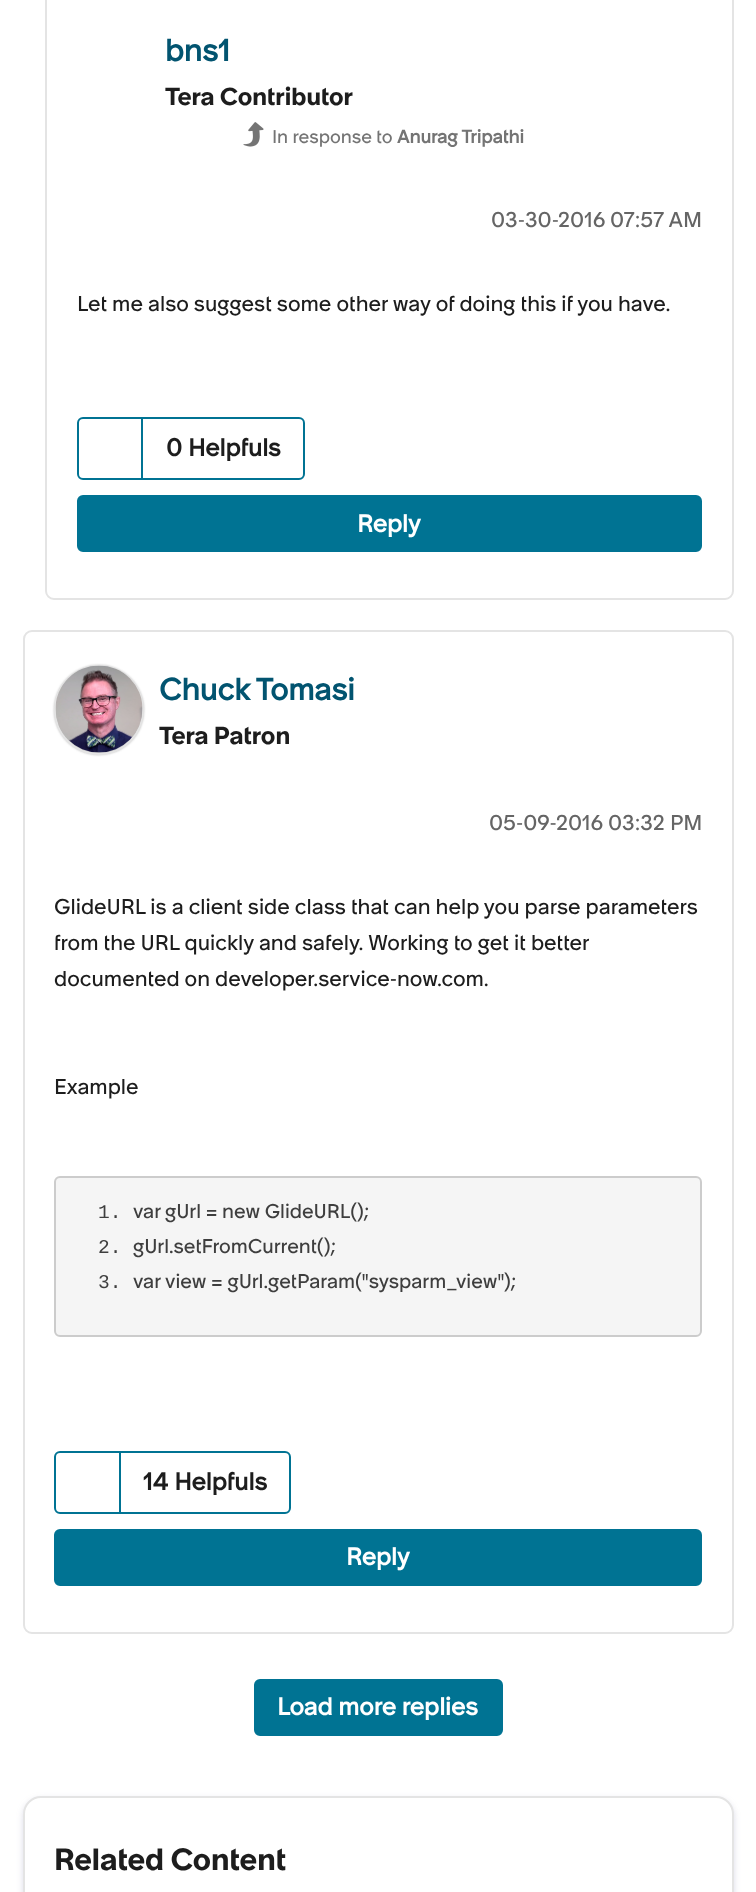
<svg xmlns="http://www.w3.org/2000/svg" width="756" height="1892">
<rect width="100%" height="100%" fill="#fff"/>
<rect x="46" y="-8" width="687" height="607" rx="8" fill="none" stroke="#e4e4e4" stroke-width="2"/>
<text x="165" y="61" style="font-family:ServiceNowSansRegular;font-size:30px;font-weight:bold;fill:#025470">bns1</text>
<text x="165" y="105" style="font-family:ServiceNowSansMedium;font-size:24px;font-weight:500;fill:#1d1d1d">Tera Contributor</text>
<image x="243" y="122" width="21" height="25" href="media/1.png"/>
<text x="272" y="143" style="font-family:ServiceNowSansRegular;font-size:18px;fill:#747474">In response to</text>
<text x="397" y="143" style="font-family:ServiceNowSansRegular;font-size:18px;font-weight:bold;fill:#747474">Anurag Tripathi</text>
<text x="491" y="227" style="font-family:ServiceNowSansRegular;font-size:21px;fill:#656565">03-30-2016</text>
<text x="610" y="227" style="font-family:ServiceNowSansRegular;font-size:21px;fill:#656565">07:57 AM</text>
<text x="77" y="311" style="font-family:ServiceNowSansRegular;font-size:21px;fill:#1d1d1d">Let me also suggest some other way of doing this if you have.</text>
<rect x="78" y="418" width="226" height="61" rx="5" fill="none" stroke="#007393" stroke-width="2"/>
<rect x="141" y="419" width="2" height="60" fill="#007393"/>
<text x="166" y="456" style="font-family:ServiceNowSansRegular;font-size:24px;font-weight:bold;fill:#1d1d1d">0 Helpfuls</text>
<rect x="78" y="496" width="623" height="55" rx="5" fill="#007393" stroke="#007393" stroke-width="2"/>
<text x="357" y="532" style="font-family:ServiceNowSansRegular;font-size:24px;font-weight:bold;fill:#fff">Reply</text>
<rect x="24" y="631" width="709" height="1002" rx="8" fill="none" stroke="#e4e4e4" stroke-width="2"/>
<rect x="54" y="665" width="90" height="90" rx="45" fill="#c4c4c4" filter="blur(1px)"/>
<circle cx="99" cy="710" r="44" fill="none" stroke="#e4e4e4" stroke-width="2"/>
<image x="55" y="665" width="88" height="88" href="media/2.png"/>
<text x="159" y="700" style="font-family:ServiceNowSansRegular;font-size:30px;font-weight:bold;fill:#025470">Chuck Tomasi</text>
<text x="159" y="744" style="font-family:ServiceNowSansMedium;font-size:24px;font-weight:500;fill:#1d1d1d">Tera Patron</text>
<text x="489" y="830" style="font-family:ServiceNowSansRegular;font-size:21px;fill:#656565">05-09-2016</text>
<text x="608" y="830" style="font-family:ServiceNowSansRegular;font-size:21px;fill:#656565">03:32 PM</text>
<text x="54" y="914" style="font-family:ServiceNowSansRegular;font-size:21px;fill:#1d1d1d">GlideURL is a client side class that can help you parse parameters</text>
<text x="54" y="950" style="font-family:ServiceNowSansRegular;font-size:21px;fill:#1d1d1d">from the URL quickly and safely. Working to get it better</text>
<text x="54" y="986" style="font-family:ServiceNowSansRegular;font-size:21px;fill:#1d1d1d">documented on developer.service-now.com.</text>
<text x="54" y="1094" style="font-family:ServiceNowSansRegular;font-size:21px;fill:#1d1d1d">Example</text>
<rect x="55" y="1177" width="646" height="159" rx="5" fill="#f5f5f5" stroke="#ccc" stroke-width="2"/>
<text x="98" y="1218" style="font-family:Liberation Mono;font-size:19.5px;fill:#3e3e3e">1.</text>
<text x="133" y="1218" style="font-family:ServiceNowSansRegular;font-size:19.5px;fill:#3e3e3e">var</text>
<text x="165" y="1218" style="font-family:ServiceNowSansRegular;font-size:19.5px;fill:#3e3e3e">gUrl = new GlideURL();</text>
<text x="98" y="1253" style="font-family:Liberation Mono;font-size:19.5px;fill:#3e3e3e">2.</text>
<text x="133" y="1253" style="font-family:ServiceNowSansRegular;font-size:19.5px;fill:#3e3e3e">gUrl.setFromCurrent();</text>
<text x="98" y="1288" style="font-family:Liberation Mono;font-size:19.5px;fill:#3e3e3e">3.</text>
<text x="133" y="1288" style="font-family:ServiceNowSansRegular;font-size:19.5px;fill:#3e3e3e">var</text>
<text x="165" y="1288" style="font-family:ServiceNowSansRegular;font-size:19.5px;fill:#3e3e3e">view = gUrl.getParam("sysparm_view"</text>
<text x="504" y="1288" style="font-family:ServiceNowSansRegular;font-size:19.5px;fill:#3e3e3e">);</text>
<rect x="55" y="1452" width="235" height="61" rx="5" fill="none" stroke="#007393" stroke-width="2"/>
<rect x="119" y="1452" width="2" height="60" fill="#007393"/>
<text x="143" y="1490" style="font-family:ServiceNowSansRegular;font-size:24px;font-weight:bold;fill:#1d1d1d">14 Helpfuls</text>
<rect x="55" y="1530" width="646" height="55" rx="5" fill="#007393" stroke="#007393" stroke-width="2"/>
<text x="346" y="1565" style="font-family:ServiceNowSansRegular;font-size:24px;font-weight:bold;fill:#fff">Reply</text>
<rect x="255" y="1680" width="247" height="55" rx="5" fill="#007393" stroke="#007393" stroke-width="2"/>
<text x="277" y="1715" style="font-family:ServiceNowSansRegular;font-size:24px;font-weight:bold;fill:#fff">Load more replies</text>
<rect x="23" y="1799" width="711" height="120" rx="18" fill="#7171a140" filter="blur(3px)"/>
<rect x="24" y="1797" width="709" height="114" rx="17" fill="#fff" stroke="#e4e4e4" stroke-width="2"/>
<text x="54" y="1870" style="font-family:ServiceNowSansMedium;font-size:30px;font-weight:500;fill:#1d1d1d">Related Content</text>
</svg>
